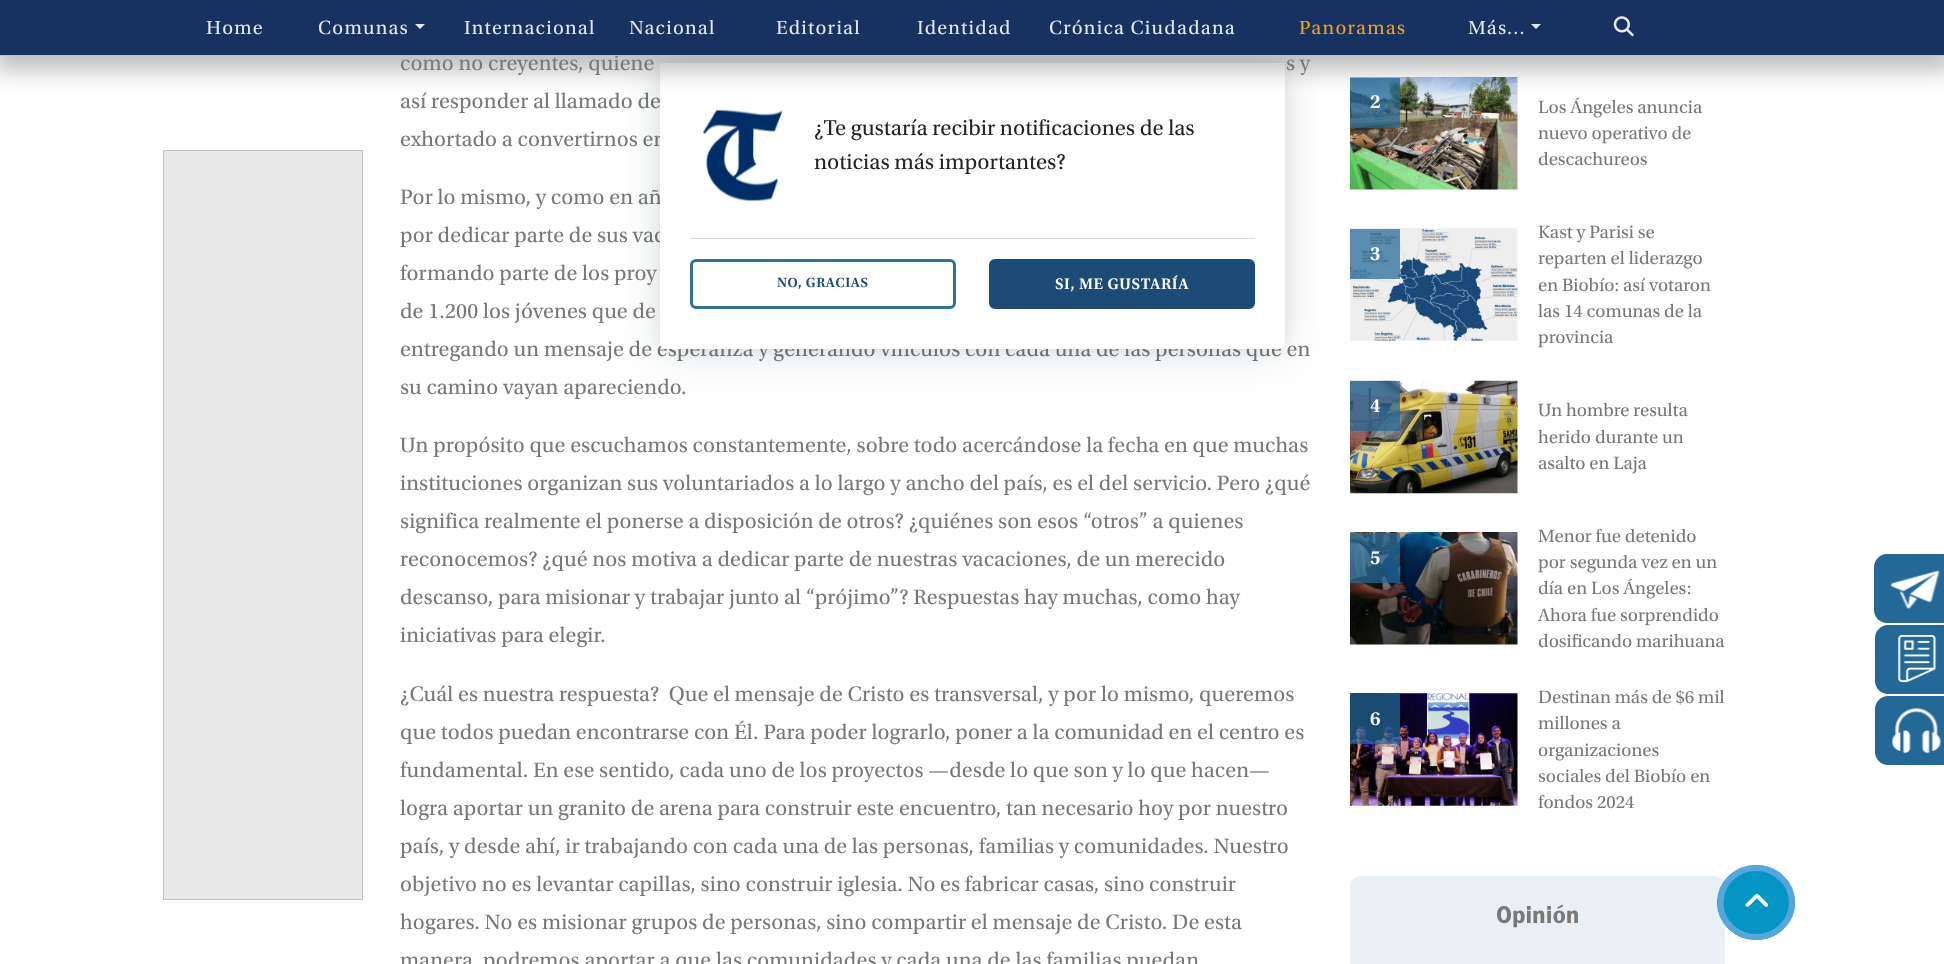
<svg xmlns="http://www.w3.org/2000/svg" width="1944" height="964">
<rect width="100%" height="100%" fill="#fff"/>
<image x="1350" y="77" width="168" height="113" href="media/2.png"/>
<rect x="1350" y="78" width="50" height="50" fill="#236897ba"/>
<text x="400" y="108" style="font-family:Utopia;font-size:22px;letter-spacing:0.12px;fill:#787878">así responder al llamado de</text>
<text x="400" y="146" style="font-family:Utopia;font-size:22px;letter-spacing:0.12px;fill:#787878">exhortado a convertirnos en</text>
<text x="400" y="204" style="font-family:Utopia;font-size:22px;letter-spacing:0.12px;fill:#787878">Por lo mismo, y como en añ</text>
<text x="400" y="242" style="font-family:Utopia;font-size:22px;letter-spacing:0.12px;fill:#787878">por dedicar parte de sus vac</text>
<text x="400" y="356" style="font-family:Utopia;font-size:22px;letter-spacing:0.12px;fill:#787878">entregando un mensaje de esperanza y generando vínculos con cada una de las personas que en</text>
<rect x="660" y="65" width="625" height="286" rx="6" fill="#051b2c29" filter="blur(20px)"/>
<rect x="660" y="64" width="625" height="286" rx="6" fill="#051b2c0f" filter="blur(4px)"/>
<path d="M660 63h625v280c0 3.5-2.5 6-6 6h-613c-3.5 0-6-2.5-6-6z" fill="#fff"/>
<rect x="-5" y="3" width="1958" height="68" fill="#00000040" filter="blur(11px)"/>
<rect width="1944" height="55" fill="#173160"/>
<text x="400" y="70" style="font-family:Utopia;font-size:22px;letter-spacing:0.12px;fill:#787878">como no creyentes, quiene</text>
<rect y="55" width="1944" height="1" fill="#b8becb"/>
<text x="206" y="34" style="font-family:Utopia;font-size:20px;letter-spacing:1.25px;fill:#e5e8ee">Home</text>
<text x="318" y="34" style="font-family:Utopia;font-size:20px;letter-spacing:1.25px;fill:#e5e8ee">Comunas</text>
<path d="M415 24h10l-5 5z" fill="#e5e8ee"/>
<text x="464" y="34" style="font-family:Utopia;font-size:20px;letter-spacing:1.25px;fill:#e5e8ee">Internacional</text>
<text x="629" y="34" style="font-family:Utopia;font-size:20px;letter-spacing:1.25px;fill:#e5e8ee">Nacional</text>
<text x="776" y="34" style="font-family:Utopia;font-size:20px;letter-spacing:1.25px;fill:#e5e8ee">Editorial</text>
<text x="917" y="34" style="font-family:Utopia;font-size:20px;letter-spacing:1.25px;fill:#e5e8ee">Identidad</text>
<text x="1049" y="34" style="font-family:Utopia;font-size:20px;letter-spacing:1.25px;fill:#e5e8ee">Crónica Ciudadana</text>
<text x="1299" y="34" style="font-family:Utopia;font-size:20px;letter-spacing:1.25px;fill:#efa21a">Panoramas</text>
<text x="1468" y="34" style="font-family:Utopia;font-size:20px;letter-spacing:1.25px;fill:#e5e8ee">Más...</text>
<path d="M1531 24h10l-5 5z" fill="#e5e8ee"/>
<image x="1613" y="16" width="21" height="21" href="media/1.png"/>
<rect x="163.5" y="150.5" width="199" height="749" fill="#e8e8e8" stroke="#c0c0c0"/>
<text x="1286" y="70" style="font-family:Utopia;font-size:22px;letter-spacing:0.12px;fill:#787878">s y</text>
<text x="400" y="280" style="font-family:Utopia;font-size:22px;letter-spacing:0.12px;fill:#787878">formando parte de los proy</text>
<text x="400" y="318" style="font-family:Utopia;font-size:22px;letter-spacing:0.12px;fill:#787878">de 1.200 los jóvenes que de</text>
<text x="400" y="394" style="font-family:Utopia;font-size:22px;letter-spacing:0.12px;fill:#787878">su camino vayan apareciendo.</text>
<text x="400" y="452" style="font-family:Utopia;font-size:22px;letter-spacing:0.12px;fill:#787878">Un propósito que escuchamos constantemente, sobre todo acercándose la fecha en que muchas</text>
<text x="400" y="490" style="font-family:Utopia;font-size:22px;letter-spacing:0.12px;fill:#787878">instituciones organizan sus voluntariados a lo largo y ancho del país, es el del servicio. Pero ¿qué</text>
<text x="400" y="528" style="font-family:Utopia;font-size:22px;letter-spacing:0.12px;fill:#787878">significa realmente el ponerse a disposición de otros? ¿quiénes son esos “otros” a quienes</text>
<text x="400" y="566" style="font-family:Utopia;font-size:22px;letter-spacing:0.12px;fill:#787878">reconocemos? ¿qué nos motiva a dedicar parte de nuestras vacaciones, de un merecido</text>
<text x="400" y="604" style="font-family:Utopia;font-size:22px;letter-spacing:0.12px;fill:#787878">descanso, para misionar y trabajar junto al “prójimo”? Respuestas hay muchas, como hay</text>
<text x="400" y="642" style="font-family:Utopia;font-size:22px;letter-spacing:0.12px;fill:#787878">iniciativas para elegir.</text>
<text x="400" y="701" style="font-family:Utopia;font-size:22px;letter-spacing:0.12px;fill:#787878" xml:space="preserve">¿Cuál es nuestra respuesta?  Que el mensaje de Cristo es transversal, y por lo mismo, queremos</text>
<text x="400" y="739" style="font-family:Utopia;font-size:22px;letter-spacing:0.12px;fill:#787878">que todos puedan encontrarse con Él. Para poder lograrlo, poner a la comunidad en el centro es</text>
<text x="400" y="777" style="font-family:Utopia;font-size:22px;letter-spacing:0.12px;fill:#787878">fundamental. En ese sentido, cada uno de los proyectos —desde lo que son y lo que hacen—</text>
<text x="400" y="815" style="font-family:Utopia;font-size:22px;letter-spacing:0.12px;fill:#787878">logra aportar un granito de arena para construir este encuentro, tan necesario hoy por nuestro</text>
<text x="400" y="853" style="font-family:Utopia;font-size:22px;letter-spacing:0.12px;fill:#787878">país, y desde ahí, ir trabajando con cada una de las personas, familias y comunidades. Nuestro</text>
<text x="400" y="891" style="font-family:Utopia;font-size:22px;letter-spacing:0.12px;fill:#787878">objetivo no es levantar capillas, sino construir iglesia. No es fabricar casas, sino construir</text>
<text x="400" y="929" style="font-family:Utopia;font-size:22px;letter-spacing:0.12px;fill:#787878">hogares. No es misionar grupos de personas, sino compartir el mensaje de Cristo. De esta</text>
<text x="400" y="967" style="font-family:Utopia;font-size:22px;letter-spacing:0.12px;fill:#787878">manera, podremos aportar a que las comunidades y cada una de las familias puedan</text>
<text x="1370" y="108" style="font-family:Utopia;font-size:20px;font-weight:600;fill:#fff">2</text>
<text x="1538" y="113" style="font-family:Utopia;font-size:18.75px;fill:#787878">Los Ángeles anuncia</text>
<text x="1538" y="139" style="font-family:Utopia;font-size:18.75px;fill:#787878">nuevo operativo de</text>
<text x="1538" y="165" style="font-family:Utopia;font-size:18.75px;fill:#787878">descachureos</text>
<image x="1350" y="228" width="168" height="113" href="media/3.png"/>
<rect x="1350" y="229" width="50" height="50" fill="#236897ba"/>
<text x="1370" y="260" style="font-family:Utopia;font-size:20px;font-weight:600;fill:#fff">3</text>
<text x="1538" y="238" style="font-family:Utopia;font-size:18.75px;fill:#787878">Kast y Parisi se</text>
<text x="1538" y="264" style="font-family:Utopia;font-size:18.75px;fill:#787878">reparten el liderazgo</text>
<text x="1538" y="291" style="font-family:Utopia;font-size:18.75px;fill:#787878">en Biobío: así votaron</text>
<text x="1538" y="317" style="font-family:Utopia;font-size:18.75px;fill:#787878">las 14 comunas de la</text>
<text x="1538" y="343" style="font-family:Utopia;font-size:18.75px;fill:#787878">provincia</text>
<image x="1350" y="380" width="168" height="114" href="media/4.png"/>
<rect x="1350" y="381" width="50" height="50" fill="#236897ba"/>
<text x="1370" y="412" style="font-family:Utopia;font-size:20px;font-weight:600;fill:#fff">4</text>
<text x="1538" y="416" style="font-family:Utopia;font-size:18.75px;fill:#787878">Un hombre resulta</text>
<text x="1538" y="443" style="font-family:Utopia;font-size:18.75px;fill:#787878">herido durante un</text>
<text x="1538" y="469" style="font-family:Utopia;font-size:18.75px;fill:#787878">asalto en Laja</text>
<image x="1350" y="532" width="168" height="113" href="media/5.png"/>
<rect x="1350" y="533" width="50" height="50" fill="#236897ba"/>
<text x="1370" y="564" style="font-family:Utopia;font-size:20px;font-weight:600;fill:#fff">5</text>
<text x="1538" y="542" style="font-family:Utopia;font-size:18.75px;fill:#787878">Menor fue detenido</text>
<text x="1538" y="568" style="font-family:Utopia;font-size:18.75px;fill:#787878">por segunda vez en un</text>
<text x="1538" y="594" style="font-family:Utopia;font-size:18.75px;fill:#787878">día en Los Ángeles:</text>
<text x="1538" y="621" style="font-family:Utopia;font-size:18.75px;fill:#787878">Ahora fue sorprendido</text>
<text x="1538" y="647" style="font-family:Utopia;font-size:18.75px;fill:#787878">dosificando marihuana</text>
<image x="1350" y="693" width="168" height="113" href="media/6.png"/>
<rect x="1350" y="694" width="50" height="50" fill="#236897ba"/>
<text x="1370" y="725" style="font-family:Utopia;font-size:20px;font-weight:600;fill:#fff">6</text>
<text x="1538" y="703" style="font-family:Utopia;font-size:18.75px;fill:#787878">Destinan más de $6 mil</text>
<text x="1538" y="729" style="font-family:Utopia;font-size:18.75px;fill:#787878">millones a</text>
<text x="1538" y="756" style="font-family:Utopia;font-size:18.75px;fill:#787878">organizaciones</text>
<text x="1538" y="782" style="font-family:Utopia;font-size:18.75px;fill:#787878">sociales del Biobío en</text>
<text x="1538" y="808" style="font-family:Utopia;font-size:18.75px;fill:#787878">fondos 2024</text>
<rect x="1350" y="876" width="375" height="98" rx="10" fill="#e8eff5"/>
<text x="1496" y="923" style="font-family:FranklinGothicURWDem;font-size:25px;fill:#787878">Opinión</text>
<image x="703" y="109" width="80" height="92" href="media/7.png"/>
<text x="814" y="135" style="font-family:Utopia;font-size:22.5px;fill:#212529">¿Te gustaría recibir notificaciones de las</text>
<text x="814" y="169" style="font-family:Utopia;font-size:22.5px;fill:#212529">noticias más importantes?</text>
<rect x="690" y="238" width="565" height="1" fill="#dadada"/>
<rect x="691.5" y="260.5" width="263" height="47" rx="4.5" fill="none" stroke="#31719c" stroke-width="3"/>
<text x="777" y="287" style="font-family:Utopia;font-size:14px;font-weight:600;letter-spacing:0.6px;fill:#1d4b77">NO, GRACIAS</text>
<rect x="990.5" y="260.5" width="263" height="47" rx="4.5" fill="#1d4b77" stroke="#1d4b77" stroke-width="3"/>
<text x="1055" y="289" style="font-family:Utopia;font-size:16px;font-weight:600;letter-spacing:0.6px;fill:#fff">SI, ME GUSTARÍA</text>
<path d="M1887 554h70v69h-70c-7 0-13-6-13-13v-43c0-7 6-13 13-13z" fill="#236897"/>
<image x="1890" y="570" width="50" height="39" href="media/8.png"/>
<path d="M1888 625h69v69h-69c-7 0-13-6-13-13v-43c0-7 6-13 13-13z" fill="#236897"/>
<image x="1897" y="635" width="40" height="48" href="media/9.png"/>
<path d="M1888 696h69v69h-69c-7 0-13-6-13-13v-43c0-7 6-13 13-13z" fill="#236897"/>
<image x="1891" y="708" width="50" height="46" href="media/10.png"/>
<ellipse cx="1756" cy="902.5" rx="39" ry="37.5" fill="#0093c4fa"/>
<path d="M1756 868c20 0 36 15.5 36 34.5c0 19-16 34.5-36 34.5c-19.5 0-35.5-15.5-35.5-34.5c0-19 16-34.5 35.5-34.5z" fill="none" stroke="#57a6dbfa" stroke-width="6.2"/>
<image x="1745" y="893" width="24" height="14" href="media/11.png"/>
</svg>
